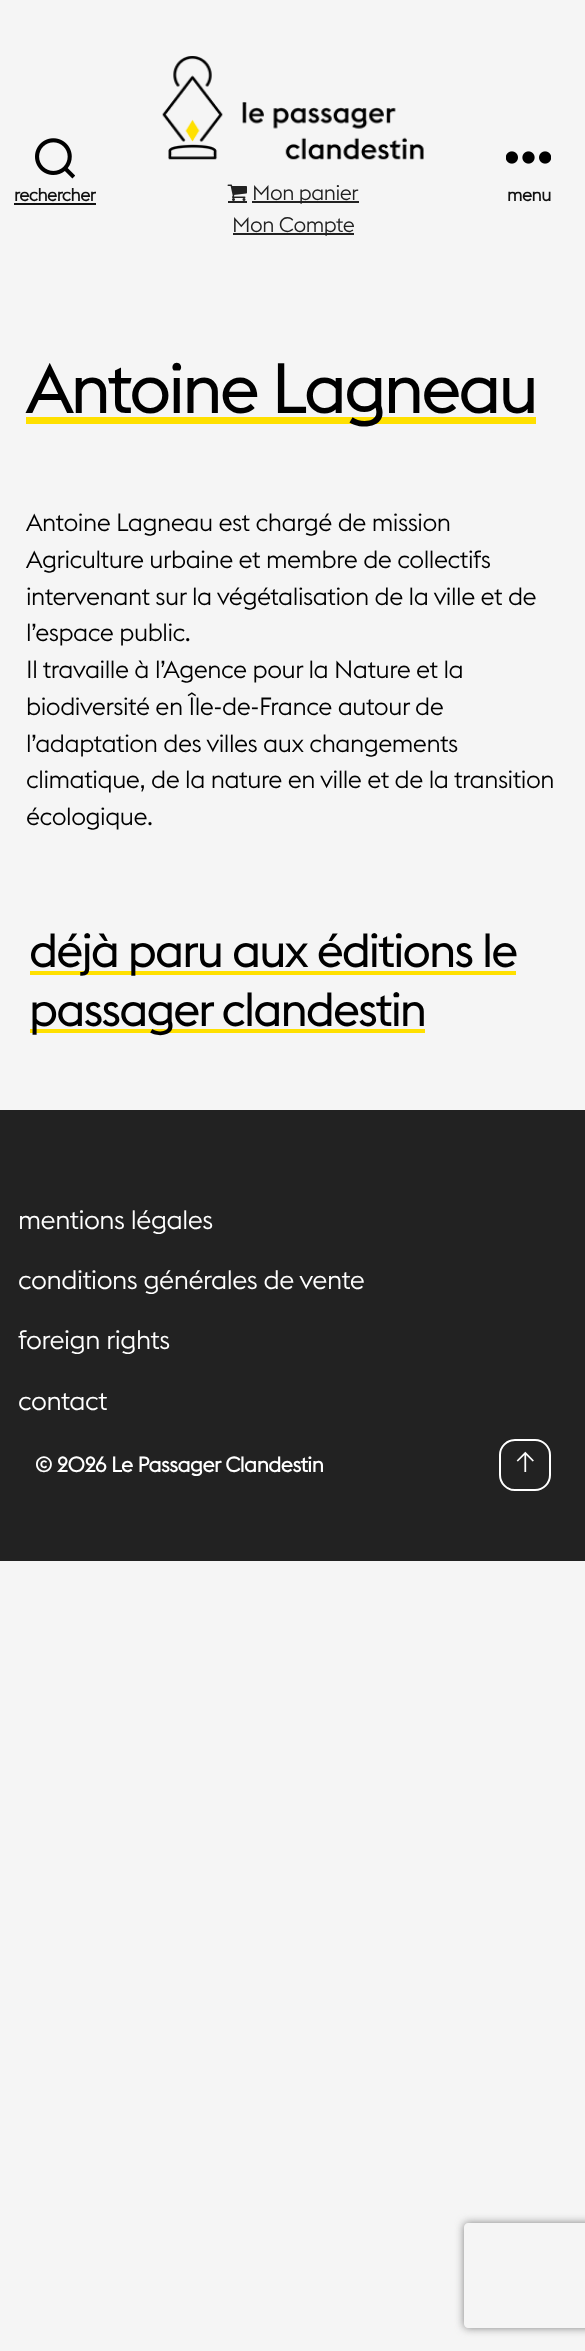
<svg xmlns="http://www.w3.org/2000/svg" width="585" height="2351">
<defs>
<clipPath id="clip1"><path d="M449 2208h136v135h-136zm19 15h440c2 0 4 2 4 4v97c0 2-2 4-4 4h-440c-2 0-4-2-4-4v-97c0-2 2-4 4-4z" clip-rule="evenodd"/></clipPath>
</defs>
<rect width="100%" height="100%" fill="#f5f5f5"/>
<image x="35" y="138" width="40" height="41" href="media/1.png"/>
<text x="14" y="201" style="font-family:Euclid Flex;font-size:17.5px;font-weight:bold;letter-spacing:-0.47px;fill:#111">rechercher</text>
<rect x="14" y="203" width="82" height="2" fill="#111"/>
<image x="162" y="56" width="262" height="104" href="media/2.png"/>
<image x="227" y="184" width="20" height="17" href="media/3.png"/>
<rect x="252" y="201" width="107" height="2" fill="#222"/>
<text x="252" y="200" style="font-family:Euclid Flex;font-size:21px;font-weight:300;letter-spacing:-0.47px;fill:#222">Mon panier</text>
<rect x="228" y="201" width="19" height="2" fill="#222"/>
<rect x="233" y="233" width="121" height="2" fill="#222"/>
<text x="232" y="232" style="font-family:Euclid Flex;font-size:21px;font-weight:300;letter-spacing:-0.47px;fill:#222">Mon Compte</text>
<image x="506" y="151" width="45" height="13" href="media/4.png"/>
<text x="507" y="201" style="font-family:Euclid Flex;font-size:17.5px;font-weight:bold;letter-spacing:-0.47px;fill:#111">menu</text>
<rect x="26" y="417" width="510" height="7" fill="#ffe000"/>
<text x="26" y="413" style="font-family:Euclid Flex;font-size:70px;letter-spacing:-2.9px;fill:#000">Antoine Lagneau</text>
<text x="26" y="531" style="font-family:Euclid Flex;font-size:24.5px;font-weight:300;letter-spacing:-0.47px;fill:#000">Antoine Lagneau est chargé de mission</text>
<text x="26" y="568" style="font-family:Euclid Flex;font-size:24.5px;font-weight:300;letter-spacing:-0.47px;fill:#000">Agriculture urbaine et membre de collectifs</text>
<text x="26" y="605" style="font-family:Euclid Flex;font-size:24.5px;font-weight:300;letter-spacing:-0.47px;fill:#000">intervenant sur la végétalisation de la ville et de</text>
<text x="26" y="641" style="font-family:Euclid Flex;font-size:24.5px;font-weight:300;letter-spacing:-0.47px;fill:#000">l’espace public.</text>
<text x="26" y="678" style="font-family:Euclid Flex;font-size:24.5px;font-weight:300;letter-spacing:-0.47px;fill:#000">Il travaille à l’Agence pour la Nature et la</text>
<text x="26" y="715" style="font-family:Euclid Flex;font-size:24.5px;font-weight:300;letter-spacing:-0.47px;fill:#000">biodiversité en Île-de-France autour de</text>
<text x="26" y="752" style="font-family:Euclid Flex;font-size:24.5px;font-weight:300;letter-spacing:-0.47px;fill:#000">l’adaptation des villes aux changements</text>
<text x="26" y="788" style="font-family:Euclid Flex;font-size:24.5px;font-weight:300;letter-spacing:-0.47px;fill:#000">climatique, de la nature en ville et de la transition</text>
<text x="26" y="825" style="font-family:Euclid Flex;font-size:24.5px;font-weight:300;letter-spacing:-0.47px;fill:#000">écologique.</text>
<rect x="30" y="971" width="486" height="4" fill="#ffe000"/>
<text x="29" y="967" style="font-family:Euclid Flex;font-size:47.25px;letter-spacing:-1.95px;fill:#000">déjà paru aux éditions le</text>
<rect x="30" y="1029" width="395" height="4" fill="#ffe000"/>
<text x="29" y="1026" style="font-family:Euclid Flex;font-size:47.25px;letter-spacing:-1.95px;fill:#000">passager clandestin</text>
<rect y="1110" width="585" height="451" fill="#222"/>
<text x="18" y="1229" style="font-family:Euclid Flex;font-size:26.25px;font-weight:300;letter-spacing:-0.47px;fill:#fff">mentions légales</text>
<text x="18" y="1289" style="font-family:Euclid Flex;font-size:26.25px;font-weight:300;letter-spacing:-0.47px;fill:#fff">conditions générales de vente</text>
<text x="18" y="1349" style="font-family:Euclid Flex;font-size:26.25px;font-weight:300;letter-spacing:-0.47px;fill:#fff">foreign rights</text>
<text x="18" y="1410" style="font-family:Euclid Flex;font-size:26.25px;font-weight:300;letter-spacing:-0.47px;fill:#fff">contact</text>
<text x="35" y="1472" style="font-family:Euclid Flex;font-size:21px;font-weight:bold;letter-spacing:-0.47px;fill:#fff">© 2026 Le Passager Clandestin</text>
<rect x="500" y="1440" width="50" height="50" rx="15" fill="none" stroke="#fff" stroke-width="2"/>
<text x="516" y="1472" style="font-family:Euclid Flex;font-size:28px;font-weight:300;letter-spacing:-0.47px;fill:#fff">↑</text>
<g clip-path="url(#clip1)">
<rect x="464" y="2223" width="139" height="105" rx="4" fill="#808080" filter="blur(4.5px)"/>
</g>
</svg>
